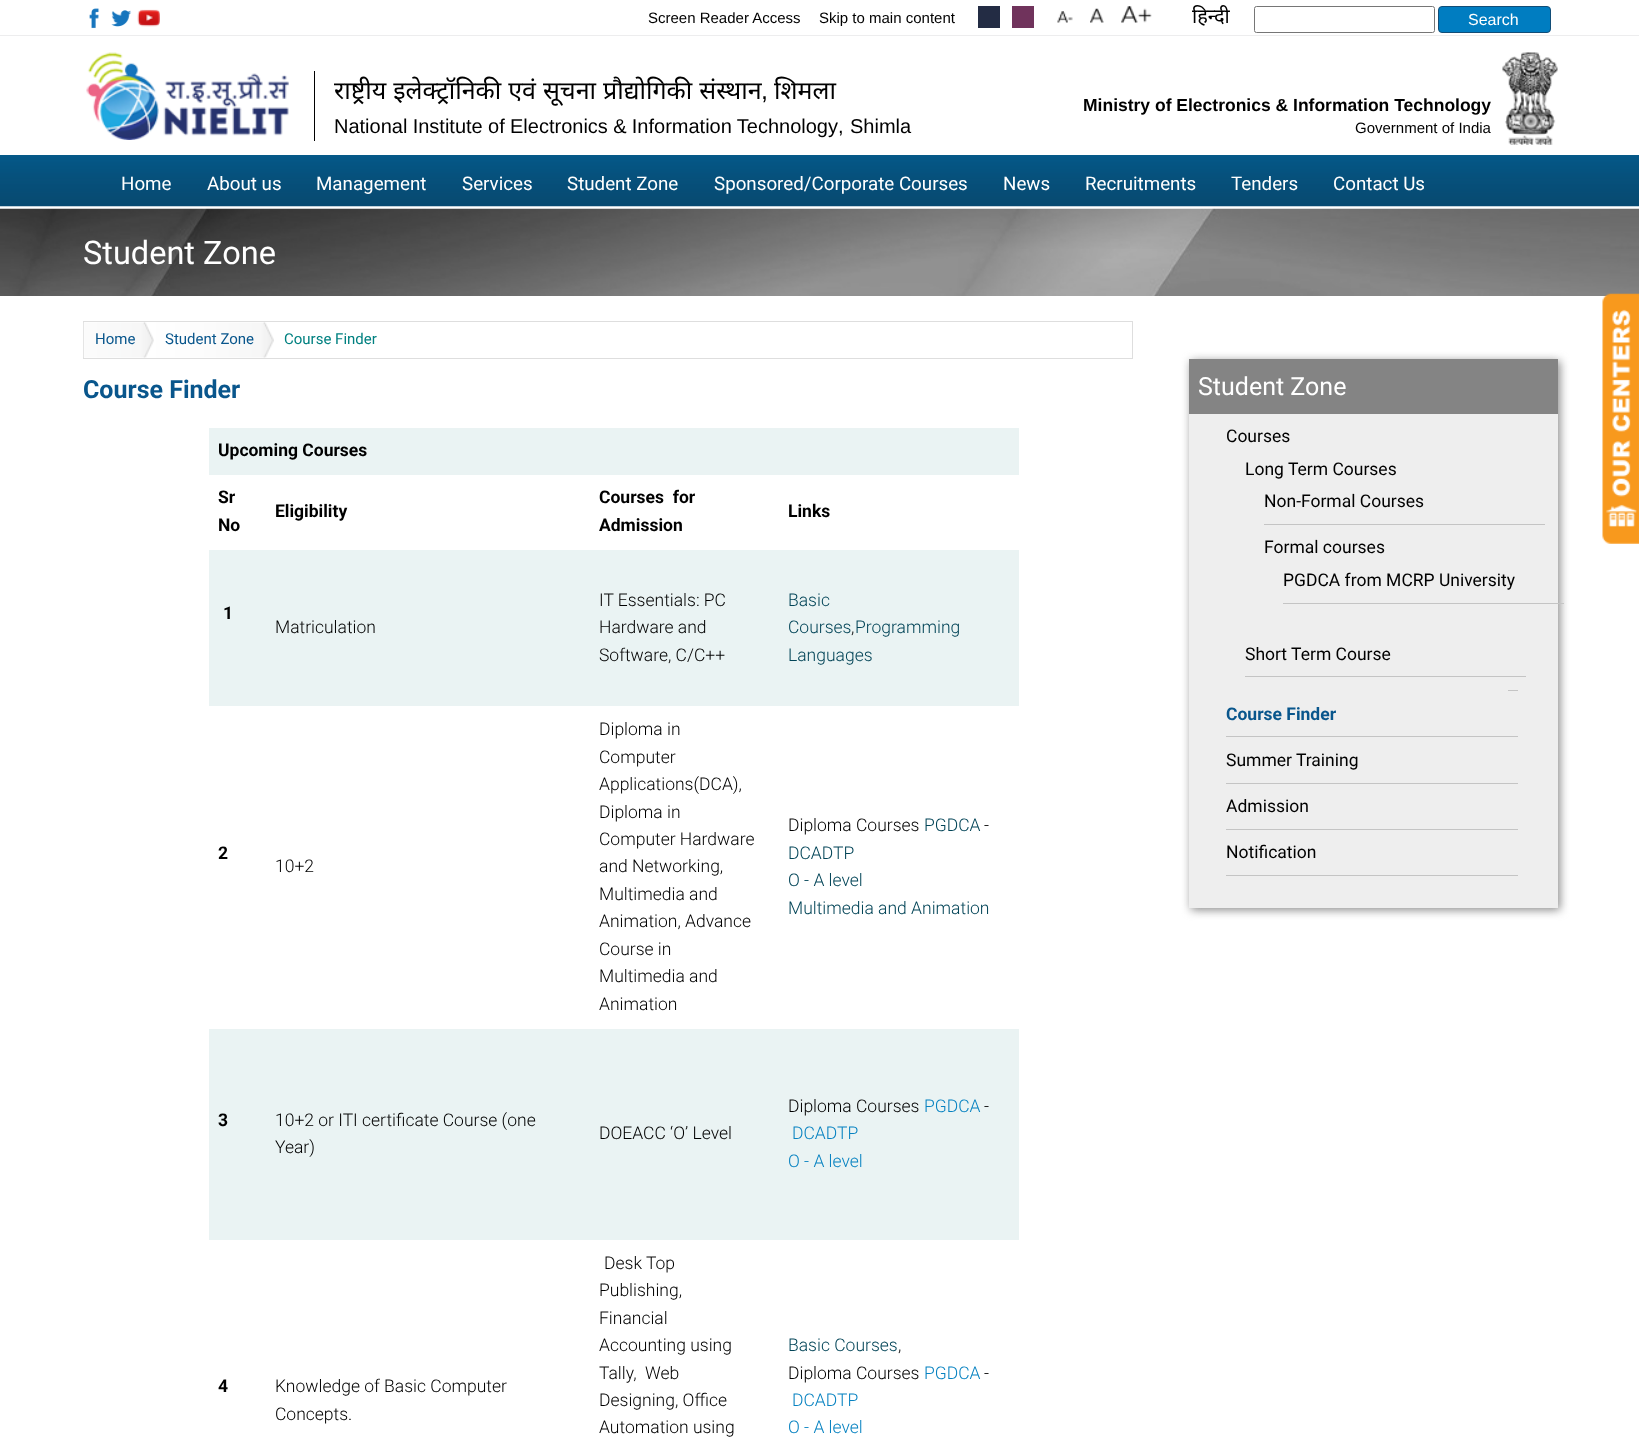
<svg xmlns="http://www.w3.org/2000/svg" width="1639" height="1447">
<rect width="100%" height="100%" fill="#fff"/>
<rect y="35" width="1639" height="1" fill="#ededee"/>
<image x="89" y="8" width="11" height="21" href="media/1.png"/>
<image x="111" y="10" width="21" height="17" href="media/2.png"/>
<image x="137" y="9" width="23" height="18" href="media/3.png"/>
<text x="648" y="23" style="font-family:Liberation Sans;font-size:15px;fill:#000">Screen Reader Access</text>
<text x="819" y="23" style="font-family:Liberation Sans;font-size:15px;fill:#000">Skip to main content</text>
<rect x="978" y="6" width="22" height="22" fill="#232c44"/>
<rect x="1012" y="6" width="22" height="22" fill="#70335c"/>
<image x="1057" y="11" width="16" height="12" href="media/4.png"/>
<image x="1090" y="8" width="14" height="15" href="media/5.png"/>
<image x="1121" y="6" width="31" height="17" href="media/6.png"/>
<text x="1192" y="23" style="font-family:Noto Sans;font-size:20px;fill:#000">हिन्दी</text>
<rect x="1254.5" y="6.5" width="180" height="26" rx="2" fill="none" stroke="#767676"/>
<rect x="1438.5" y="6.5" width="112" height="26" rx="3.5" fill="#007dc1" stroke="#124d77"/>
<text x="1468" y="25" style="font-family:Liberation Sans;font-size:16px;fill:#fff">Search</text>
<image x="86" y="52" width="203" height="88" href="media/7.png"/>
<rect x="314" y="71" width="1" height="70" fill="#000"/>
<text x="334" y="99" word-spacing="0.5" style="font-family:Noto Sans;font-size:25px;fill:#000">राष्ट्रीय इलेक्ट्रॉनिकी एवं सूचना प्रौद्योगिकी संस्थान</text>
<text x="761" y="99" style="font-family:Liberation Sans;font-size:25px;fill:#000">,</text>
<text x="774" y="99" style="font-family:Noto Sans;font-size:25px;fill:#000">शिमला</text>
<text x="334" y="133" word-spacing="-0.25" style="font-family:Liberation Sans;font-size:20px;fill:#000">National Institute of Electronics &amp; Information Technology</text>
<text x="838" y="133" style="font-family:Liberation Sans;font-size:20px;fill:#000">,</text>
<text x="850" y="133" style="font-family:Liberation Sans;font-size:20px;fill:#000">Shimla</text>
<text x="1083" y="111" style="font-family:Liberation Sans;font-size:17.5px;font-weight:bold;fill:#000">Ministry of Electronics &amp; Information Technology</text>
<text x="1355" y="133" style="font-family:Liberation Sans;font-size:15px;fill:#000">Government of India</text>
<image x="1502" y="52" width="56" height="93" href="media/8.png"/>
<image x="0" y="155" width="1639" height="52" href="media/9.png"/>
<text x="121" y="190" style="font-family:Roboto;font-size:18.75px;fill:#fff">Home</text>
<text x="207" y="190" style="font-family:Roboto;font-size:18.75px;fill:#fff">About us</text>
<text x="316" y="190" style="font-family:Roboto;font-size:18.75px;fill:#fff">Management</text>
<text x="462" y="190" style="font-family:Roboto;font-size:18.75px;fill:#fff">Services</text>
<text x="567" y="190" style="font-family:Roboto;font-size:18.75px;fill:#fff">Student Zone</text>
<text x="714" y="190" style="font-family:Roboto;font-size:18.75px;fill:#fff">Sponsored/Corporate Courses</text>
<text x="1003" y="190" style="font-family:Roboto;font-size:18.75px;fill:#fff">News</text>
<text x="1085" y="190" style="font-family:Roboto;font-size:18.75px;fill:#fff">Recruitments</text>
<text x="1231" y="190" style="font-family:Roboto;font-size:18.75px;fill:#fff">Tenders</text>
<text x="1333" y="190" style="font-family:Roboto;font-size:18.75px;fill:#fff">Contact Us</text>
<image x="0" y="208" width="1639" height="88" href="media/10.png"/>
<text x="83" y="264" style="font-family:Roboto;font-size:32.5px;fill:#fff">Student Zone</text>
<rect x="83.5" y="321.5" width="1049" height="37" fill="none" stroke="#dedede"/>
<image x="83" y="322" width="71" height="36" href="media/11.png"/>
<text x="95" y="344" style="font-family:Roboto;font-size:15px;fill:#09568c">Home</text>
<image x="153" y="322" width="121" height="36" href="media/12.png"/>
<text x="165" y="344" style="font-family:Roboto;font-size:15px;fill:#09568c">Student Zone</text>
<text x="284" y="344" style="font-family:Roboto;font-size:15px;fill:#008080">Course Finder</text>
<text x="83" y="398" style="font-family:Roboto;font-size:25px;font-weight:bold;fill:#09568c">Course Finder</text>
<rect x="209" y="428" width="810" height="47" fill="#eaf3f3"/>
<text x="218" y="456" style="font-family:Roboto;font-size:17.5px;font-weight:bold;fill:#000">Upcoming Courses</text>
<text x="218" y="503" style="font-family:Roboto;font-size:17.5px;font-weight:bold;fill:#000">Sr</text>
<text x="218" y="531" style="font-family:Roboto;font-size:17.5px;font-weight:bold;fill:#000">No</text>
<text x="275" y="517" style="font-family:Roboto;font-size:17.5px;font-weight:bold;fill:#000">Eligibility</text>
<text x="599" y="503" style="font-family:Roboto;font-size:17.5px;font-weight:bold;fill:#000" xml:space="preserve">Courses  for</text>
<text x="599" y="531" style="font-family:Roboto;font-size:17.5px;font-weight:bold;fill:#000">Admission</text>
<text x="788" y="517" style="font-family:Roboto;font-size:17.5px;font-weight:bold;fill:#000">Links</text>
<rect x="209" y="550" width="810" height="156" fill="#eaf3f3"/>
<text x="223" y="619" style="font-family:Roboto;font-size:17.5px;font-weight:bold;fill:#000">1</text>
<text x="599" y="606" style="font-family:Roboto;font-size:17.5px;font-weight:300;fill:#000">IT Essentials: PC</text>
<text x="599" y="633" style="font-family:Roboto;font-size:17.5px;font-weight:300;fill:#000">Hardware and</text>
<text x="599" y="661" style="font-family:Roboto;font-size:17.5px;font-weight:300;fill:#000">Software, C/C++</text>
<text x="788" y="606" style="font-family:Roboto;font-size:17.5px;font-weight:300;fill:#024457">Basic</text>
<text x="788" y="633" style="font-family:Roboto;font-size:17.5px;font-weight:300;fill:#024457">Courses</text>
<text x="851" y="633" style="font-family:Roboto;font-size:17.5px;font-weight:300;fill:#000">,</text>
<text x="855" y="633" style="font-family:Roboto;font-size:17.5px;font-weight:300;fill:#024457">Programming</text>
<text x="788" y="661" style="font-family:Roboto;font-size:17.5px;font-weight:300;fill:#024457">Languages</text>
<text x="275" y="633" style="font-family:Roboto;font-size:17.5px;font-weight:300;fill:#000">Matriculation</text>
<text x="218" y="859" style="font-family:Roboto;font-size:17.5px;font-weight:bold;fill:#000">2</text>
<text x="599" y="735" style="font-family:Roboto;font-size:17.5px;font-weight:300;fill:#000">Diploma in</text>
<text x="599" y="763" style="font-family:Roboto;font-size:17.5px;font-weight:300;fill:#000">Computer</text>
<text x="599" y="790" style="font-family:Roboto;font-size:17.5px;font-weight:300;fill:#000">Applications(DCA),</text>
<text x="599" y="818" style="font-family:Roboto;font-size:17.5px;font-weight:300;fill:#000">Diploma in</text>
<text x="599" y="845" style="font-family:Roboto;font-size:17.5px;font-weight:300;fill:#000">Computer Hardware</text>
<text x="599" y="872" style="font-family:Roboto;font-size:17.5px;font-weight:300;fill:#000">and Networking,</text>
<text x="599" y="900" style="font-family:Roboto;font-size:17.5px;font-weight:300;fill:#000">Multimedia and</text>
<text x="599" y="927" style="font-family:Roboto;font-size:17.5px;font-weight:300;fill:#000">Animation, Advance</text>
<text x="599" y="955" style="font-family:Roboto;font-size:17.5px;font-weight:300;fill:#000">Course in</text>
<text x="599" y="982" style="font-family:Roboto;font-size:17.5px;font-weight:300;fill:#000">Multimedia and</text>
<text x="599" y="1010" style="font-family:Roboto;font-size:17.5px;font-weight:300;fill:#000">Animation</text>
<text x="788" y="831" style="font-family:Roboto;font-size:17.5px;font-weight:300;fill:#000">Diploma Courses</text>
<text x="924" y="831" style="font-family:Roboto;font-size:17.5px;font-weight:300;fill:#024457">PGDCA</text>
<text x="984" y="831" style="font-family:Roboto;font-size:17.5px;font-weight:300;fill:#000">-</text>
<text x="788" y="859" style="font-family:Roboto;font-size:17.5px;font-weight:300;fill:#024457">DCADTP</text>
<text x="788" y="886" style="font-family:Roboto;font-size:17.5px;font-weight:300;fill:#024457">O - A level</text>
<text x="788" y="914" style="font-family:Roboto;font-size:17.5px;font-weight:300;fill:#024457">Multimedia and Animation</text>
<text x="275" y="872" style="font-family:Roboto;font-size:17.5px;font-weight:300;fill:#000">10+2</text>
<rect x="209" y="1029" width="810" height="211" fill="#eaf3f3"/>
<text x="218" y="1126" style="font-family:Roboto;font-size:17.5px;font-weight:bold;fill:#000">3</text>
<text x="275" y="1126" style="font-family:Roboto;font-size:17.5px;font-weight:300;fill:#000">10+2 or ITI certificate Course (one</text>
<text x="275" y="1153" style="font-family:Roboto;font-size:17.5px;font-weight:300;fill:#000">Year)</text>
<text x="788" y="1112" style="font-family:Roboto;font-size:17.5px;font-weight:300;fill:#000">Diploma Courses</text>
<text x="924" y="1112" style="font-family:Roboto;font-size:17.5px;font-weight:300;fill:#0782c1">PGDCA</text>
<text x="984" y="1112" style="font-family:Roboto;font-size:17.5px;font-weight:300;fill:#000">-</text>
<text x="792" y="1139" style="font-family:Roboto;font-size:17.5px;font-weight:300;fill:#0782c1">DCADTP</text>
<text x="788" y="1167" style="font-family:Roboto;font-size:17.5px;font-weight:300;fill:#0782c1">O - A level</text>
<text x="599" y="1139" style="font-family:Roboto;font-size:17.5px;font-weight:300;fill:#000">DOEACC ‘O’ Level</text>
<text x="218" y="1392" style="font-family:Roboto;font-size:17.5px;font-weight:bold;fill:#000">4</text>
<text x="275" y="1392" style="font-family:Roboto;font-size:17.5px;font-weight:300;fill:#000">Knowledge of Basic Computer</text>
<text x="275" y="1420" style="font-family:Roboto;font-size:17.5px;font-weight:300;fill:#000">Concepts.</text>
<text x="604" y="1269" style="font-family:Roboto;font-size:17.5px;font-weight:300;fill:#000">Desk Top</text>
<text x="599" y="1296" style="font-family:Roboto;font-size:17.5px;font-weight:300;fill:#000">Publishing,</text>
<text x="599" y="1324" style="font-family:Roboto;font-size:17.5px;font-weight:300;fill:#000">Financial</text>
<text x="599" y="1351" style="font-family:Roboto;font-size:17.5px;font-weight:300;fill:#000">Accounting using</text>
<text x="599" y="1379" style="font-family:Roboto;font-size:17.5px;font-weight:300;fill:#000" xml:space="preserve">Tally,  Web</text>
<text x="599" y="1406" style="font-family:Roboto;font-size:17.5px;font-weight:300;fill:#000">Designing, Office</text>
<text x="599" y="1433" style="font-family:Roboto;font-size:17.5px;font-weight:300;fill:#000">Automation using</text>
<text x="788" y="1351" style="font-family:Roboto;font-size:17.5px;font-weight:300;fill:#024457">Basic Courses</text>
<text x="898" y="1351" style="font-family:Roboto;font-size:17.5px;font-weight:300;fill:#000">,</text>
<text x="788" y="1379" style="font-family:Roboto;font-size:17.5px;font-weight:300;fill:#000">Diploma Courses</text>
<text x="924" y="1379" style="font-family:Roboto;font-size:17.5px;font-weight:300;fill:#0782c1">PGDCA</text>
<text x="984" y="1379" style="font-family:Roboto;font-size:17.5px;font-weight:300;fill:#000">-</text>
<text x="792" y="1406" style="font-family:Roboto;font-size:17.5px;font-weight:300;fill:#0782c1">DCADTP</text>
<text x="788" y="1433" style="font-family:Roboto;font-size:17.5px;font-weight:300;fill:#0782c1">O - A level</text>
<rect x="1191" y="361" width="369" height="549" fill="#888" filter="blur(5px)"/>
<rect x="1189" y="359" width="369" height="55" fill="#848484"/>
<text x="1198" y="395" style="font-family:Roboto;font-size:25px;fill:#fff">Student Zone</text>
<rect x="1189" y="414" width="369" height="494" fill="#eee"/>
<rect x="1508" y="690" width="10" height="1" fill="#c4c4c4"/>
<text x="1226" y="442" style="font-family:Roboto;font-size:17.5px;fill:#000">Courses</text>
<text x="1245" y="475" style="font-family:Roboto;font-size:17.5px;fill:#000">Long Term Courses</text>
<rect x="1264" y="524" width="281" height="1" fill="#c4c4c4"/>
<text x="1264" y="507" style="font-family:Roboto;font-size:17.5px;fill:#000">Non-Formal Courses</text>
<text x="1264" y="553" style="font-family:Roboto;font-size:17.5px;fill:#000">Formal courses</text>
<rect x="1283" y="603" width="281" height="1" fill="#c4c4c4"/>
<text x="1283" y="586" style="font-family:Roboto;font-size:17.5px;fill:#000">PGDCA from MCRP University</text>
<rect x="1245" y="676" width="281" height="1" fill="#c4c4c4"/>
<text x="1245" y="660" style="font-family:Roboto;font-size:17.5px;fill:#000">Short Term Course</text>
<rect x="1226" y="736" width="292" height="1" fill="#c4c4c4"/>
<text x="1226" y="720" style="font-family:Roboto;font-size:17.5px;font-weight:bold;fill:#09568c">Course Finder</text>
<rect x="1226" y="783" width="292" height="1" fill="#c4c4c4"/>
<text x="1226" y="766" style="font-family:Roboto;font-size:17.5px;fill:#000">Summer Training</text>
<rect x="1226" y="829" width="292" height="1" fill="#c4c4c4"/>
<text x="1226" y="812" style="font-family:Roboto;font-size:17.5px;fill:#000">Admission</text>
<rect x="1226" y="875" width="292" height="1" fill="#c4c4c4"/>
<text x="1226" y="858" style="font-family:Roboto;font-size:17.5px;fill:#000">Notification</text>
<image x="1602" y="293" width="37" height="251" href="media/13.png"/>
</svg>
